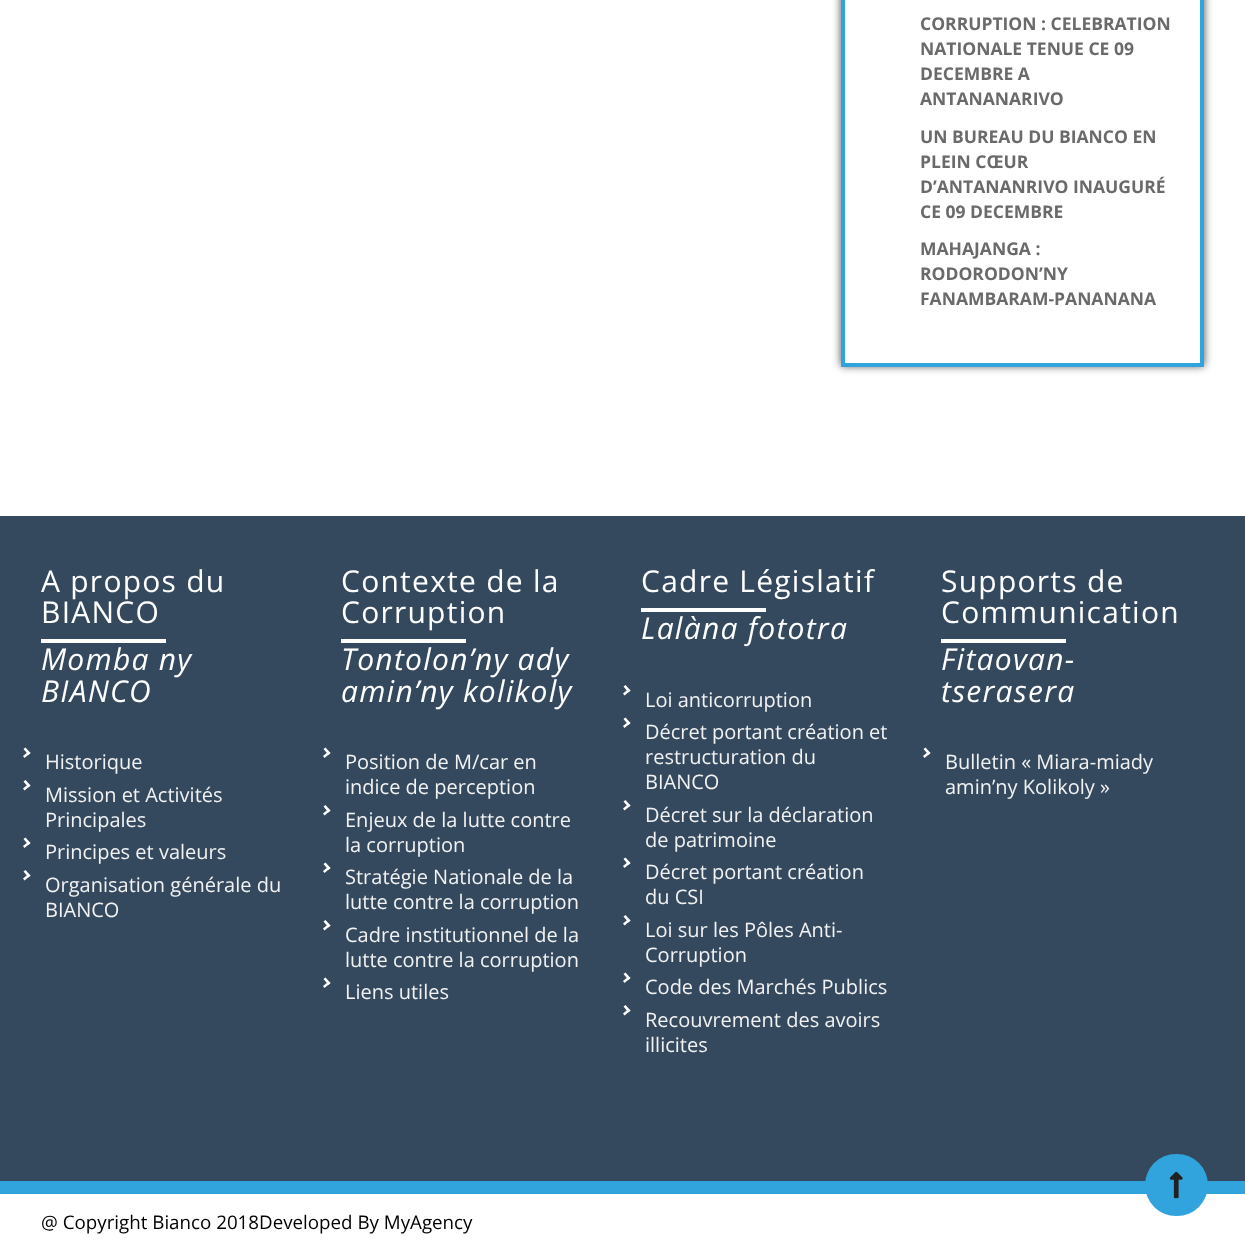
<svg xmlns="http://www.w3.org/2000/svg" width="1245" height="1253">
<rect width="100%" height="100%" fill="#fff"/>
<rect x="841" y="-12" width="363" height="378" fill="#000000b3" filter="blur(4px)"/>
<rect x="845" width="355" height="363" fill="#fff"/>
<rect x="1200" width="4" height="366" fill="#31a3dd"/>
<rect x="841" y="363" width="363" height="4" fill="#31a3dd"/>
<rect x="841" width="4" height="366" fill="#31a3dd"/>
<text x="920" y="30" style="font-family:Open Sans;font-size:17.5px;font-weight:bold;fill:#6a6a6a">CORRUPTION : CELEBRATION</text>
<text x="920" y="55" style="font-family:Open Sans;font-size:17.5px;font-weight:bold;fill:#6a6a6a">NATIONALE TENUE CE 09</text>
<text x="920" y="80" style="font-family:Open Sans;font-size:17.5px;font-weight:bold;fill:#6a6a6a">DECEMBRE A</text>
<text x="920" y="105" style="font-family:Open Sans;font-size:17.5px;font-weight:bold;fill:#6a6a6a">ANTANANARIVO</text>
<text x="920" y="143" style="font-family:Open Sans;font-size:17.5px;font-weight:bold;fill:#6a6a6a">UN BUREAU DU BIANCO EN</text>
<text x="920" y="168" style="font-family:Open Sans;font-size:17.5px;font-weight:bold;fill:#6a6a6a">PLEIN CŒUR</text>
<text x="920" y="193" style="font-family:Open Sans;font-size:17.5px;font-weight:bold;fill:#6a6a6a">D’ANTANANRIVO INAUGURÉ</text>
<text x="920" y="218" style="font-family:Open Sans;font-size:17.5px;font-weight:bold;fill:#6a6a6a">CE 09 DECEMBRE</text>
<text x="920" y="255" style="font-family:Open Sans;font-size:17.5px;font-weight:bold;fill:#6a6a6a">MAHAJANGA :</text>
<text x="920" y="280" style="font-family:Open Sans;font-size:17.5px;font-weight:bold;fill:#6a6a6a">RODORODON’NY</text>
<text x="920" y="305" style="font-family:Open Sans;font-size:17.5px;font-weight:bold;fill:#6a6a6a">FANAMBARAM-PANANANA</text>
<rect y="516" width="1245" height="665" fill="#34495e"/>
<text x="41" y="592" style="font-family:Open Sans;font-size:30px;letter-spacing:1.25px;fill:#fff">A propos du</text>
<text x="41" y="623" style="font-family:Open Sans;font-size:30px;letter-spacing:1.25px;fill:#fff">BIANCO</text>
<rect x="41" y="639" width="125" height="4" fill="#fff"/>
<text x="41" y="670" style="font-family:Open Sans;font-size:30px;font-style:italic;letter-spacing:1.25px;fill:#fff">Momba ny</text>
<text x="41" y="702" style="font-family:Open Sans;font-size:30px;font-style:italic;letter-spacing:1.25px;fill:#fff">BIANCO</text>
<path d="M25.5 747.5l5 5.5l-2 2l-5-6z" fill="#fff"/>
<path d="M28.5 751.5l2 1.5l-6 5l-1.5-2z" fill="#fff"/>
<text x="45" y="769" style="font-family:Open Sans;font-size:20px;fill:#f2f2f2">Historique</text>
<path d="M25.5 780l5 5.5l-2 2l-5-6z" fill="#fff"/>
<path d="M28.5 784l2 1.5l-6 5l-1.5-2z" fill="#fff"/>
<text x="45" y="802" style="font-family:Open Sans;font-size:20px;fill:#f2f2f2">Mission et Activités</text>
<text x="45" y="827" style="font-family:Open Sans;font-size:20px;fill:#f2f2f2">Principales</text>
<path d="M25.5 837.5l5 5.5l-2 2l-5-6z" fill="#fff"/>
<path d="M28.5 841.5l2 1.5l-6 5l-1.5-2z" fill="#fff"/>
<text x="45" y="859" style="font-family:Open Sans;font-size:20px;fill:#f2f2f2">Principes et valeurs</text>
<path d="M25.5 870l5 5.5l-2 2l-5-6z" fill="#fff"/>
<path d="M28.5 874l2 1.5l-6 5l-1.5-2z" fill="#fff"/>
<text x="45" y="892" style="font-family:Open Sans;font-size:20px;fill:#f2f2f2">Organisation générale du</text>
<text x="45" y="917" style="font-family:Open Sans;font-size:20px;fill:#f2f2f2">BIANCO</text>
<text x="341" y="592" style="font-family:Open Sans;font-size:30px;letter-spacing:1.25px;fill:#fff">Contexte de la</text>
<text x="341" y="623" style="font-family:Open Sans;font-size:30px;letter-spacing:1.25px;fill:#fff">Corruption</text>
<rect x="341" y="639" width="125" height="4" fill="#fff"/>
<text x="341" y="670" style="font-family:Open Sans;font-size:30px;font-style:italic;letter-spacing:1.25px;fill:#fff">Tontolon’ny ady</text>
<text x="341" y="702" style="font-family:Open Sans;font-size:30px;font-style:italic;letter-spacing:1.25px;fill:#fff">amin’ny kolikoly</text>
<path d="M325.5 747.5l5 5.5l-2 2l-5-6z" fill="#fff"/>
<path d="M328.5 751.5l2 1.5l-6 5l-1.5-2z" fill="#fff"/>
<text x="345" y="769" style="font-family:Open Sans;font-size:20px;fill:#f2f2f2">Position de M/car en</text>
<text x="345" y="794" style="font-family:Open Sans;font-size:20px;fill:#f2f2f2">indice de perception</text>
<path d="M325.5 805l5 5.5l-2 2l-5-6z" fill="#fff"/>
<path d="M328.5 809l2 1.5l-6 5l-1.5-2z" fill="#fff"/>
<text x="345" y="827" style="font-family:Open Sans;font-size:20px;fill:#f2f2f2">Enjeux de la lutte contre</text>
<text x="345" y="852" style="font-family:Open Sans;font-size:20px;fill:#f2f2f2">la corruption</text>
<path d="M325.5 862.5l5 5.5l-2 2l-5-6z" fill="#fff"/>
<path d="M328.5 866.5l2 1.5l-6 5l-1.5-2z" fill="#fff"/>
<text x="345" y="884" style="font-family:Open Sans;font-size:20px;fill:#f2f2f2">Stratégie Nationale de la</text>
<text x="345" y="909" style="font-family:Open Sans;font-size:20px;fill:#f2f2f2">lutte contre la corruption</text>
<path d="M325.5 920l5 5.5l-2 2l-5-6z" fill="#fff"/>
<path d="M328.5 924l2 1.5l-6 5l-1.5-2z" fill="#fff"/>
<text x="345" y="942" style="font-family:Open Sans;font-size:20px;fill:#f2f2f2">Cadre institutionnel de la</text>
<text x="345" y="967" style="font-family:Open Sans;font-size:20px;fill:#f2f2f2">lutte contre la corruption</text>
<path d="M325.5 977.5l5 5.5l-2 2l-5-6z" fill="#fff"/>
<path d="M328.5 981.5l2 1.5l-6 5l-1.5-2z" fill="#fff"/>
<text x="345" y="999" style="font-family:Open Sans;font-size:20px;fill:#f2f2f2">Liens utiles</text>
<text x="641" y="592" style="font-family:Open Sans;font-size:30px;letter-spacing:1.25px;fill:#fff">Cadre Législatif</text>
<rect x="641" y="608" width="125" height="4" fill="#fff"/>
<text x="641" y="639" style="font-family:Open Sans;font-size:30px;font-style:italic;letter-spacing:1.25px;fill:#fff">Lalàna fototra</text>
<path d="M625.5 685l5 5.5l-2 2l-5-6z" fill="#fff"/>
<path d="M628.5 689l2 1.5l-6 5l-1.5-2z" fill="#fff"/>
<text x="645" y="707" style="font-family:Open Sans;font-size:20px;fill:#f2f2f2">Loi anticorruption</text>
<path d="M625.5 717.5l5 5.5l-2 2l-5-6z" fill="#fff"/>
<path d="M628.5 721.5l2 1.5l-6 5l-1.5-2z" fill="#fff"/>
<text x="645" y="739" style="font-family:Open Sans;font-size:20px;fill:#f2f2f2">Décret portant création et</text>
<text x="645" y="764" style="font-family:Open Sans;font-size:20px;fill:#f2f2f2">restructuration du</text>
<text x="645" y="789" style="font-family:Open Sans;font-size:20px;fill:#f2f2f2">BIANCO</text>
<path d="M625.5 800l5 5.5l-2 2l-5-6z" fill="#fff"/>
<path d="M628.5 804l2 1.5l-6 5l-1.5-2z" fill="#fff"/>
<text x="645" y="822" style="font-family:Open Sans;font-size:20px;fill:#f2f2f2">Décret sur la déclaration</text>
<text x="645" y="847" style="font-family:Open Sans;font-size:20px;fill:#f2f2f2">de patrimoine</text>
<path d="M625.5 857.5l5 5.5l-2 2l-5-6z" fill="#fff"/>
<path d="M628.5 861.5l2 1.5l-6 5l-1.5-2z" fill="#fff"/>
<text x="645" y="879" style="font-family:Open Sans;font-size:20px;fill:#f2f2f2">Décret portant création</text>
<text x="645" y="904" style="font-family:Open Sans;font-size:20px;fill:#f2f2f2">du CSI</text>
<path d="M625.5 915l5 5.5l-2 2l-5-6z" fill="#fff"/>
<path d="M628.5 919l2 1.5l-6 5l-1.5-2z" fill="#fff"/>
<text x="645" y="937" style="font-family:Open Sans;font-size:20px;fill:#f2f2f2">Loi sur les Pôles Anti-</text>
<text x="645" y="962" style="font-family:Open Sans;font-size:20px;fill:#f2f2f2">Corruption</text>
<path d="M625.5 972.5l5 5.5l-2 2l-5-6z" fill="#fff"/>
<path d="M628.5 976.5l2 1.5l-6 5l-1.5-2z" fill="#fff"/>
<text x="645" y="994" style="font-family:Open Sans;font-size:20px;fill:#f2f2f2">Code des Marchés Publics</text>
<path d="M625.5 1005l5 5.5l-2 2l-5-6z" fill="#fff"/>
<path d="M628.5 1009l2 1.5l-6 5l-1.5-2z" fill="#fff"/>
<text x="645" y="1027" style="font-family:Open Sans;font-size:20px;fill:#f2f2f2">Recouvrement des avoirs</text>
<text x="645" y="1052" style="font-family:Open Sans;font-size:20px;fill:#f2f2f2">illicites</text>
<text x="941" y="592" style="font-family:Open Sans;font-size:30px;letter-spacing:1.25px;fill:#fff">Supports de</text>
<text x="941" y="623" style="font-family:Open Sans;font-size:30px;letter-spacing:1.25px;fill:#fff">Communication</text>
<rect x="941" y="639" width="125" height="4" fill="#fff"/>
<text x="941" y="670" style="font-family:Open Sans;font-size:30px;font-style:italic;letter-spacing:1.25px;fill:#fff">Fitaovan-</text>
<text x="941" y="702" style="font-family:Open Sans;font-size:30px;font-style:italic;letter-spacing:1.25px;fill:#fff">tserasera</text>
<path d="M925.5 747.5l5 5.5l-2 2l-5-6z" fill="#fff"/>
<path d="M928.5 751.5l2 1.5l-6 5l-1.5-2z" fill="#fff"/>
<text x="945" y="769" style="font-family:Open Sans;font-size:20px;fill:#f2f2f2">Bulletin « Miara-miady</text>
<text x="945" y="794" style="font-family:Open Sans;font-size:20px;fill:#f2f2f2">amin’ny Kolikoly »</text>
<rect y="1181" width="1245" height="13" fill="#31a3dd"/>
<rect x="1145" y="1154" width="63" height="62" rx="31" fill="#31a3dd"/>
<image x="1169" y="1171" width="14" height="28" href="media/1.png"/>
<text x="41" y="1229" style="font-family:Open Sans;font-size:18.75px;fill:#000">@ Copyright Bianco 2018Developed By MyAgency</text>
</svg>
